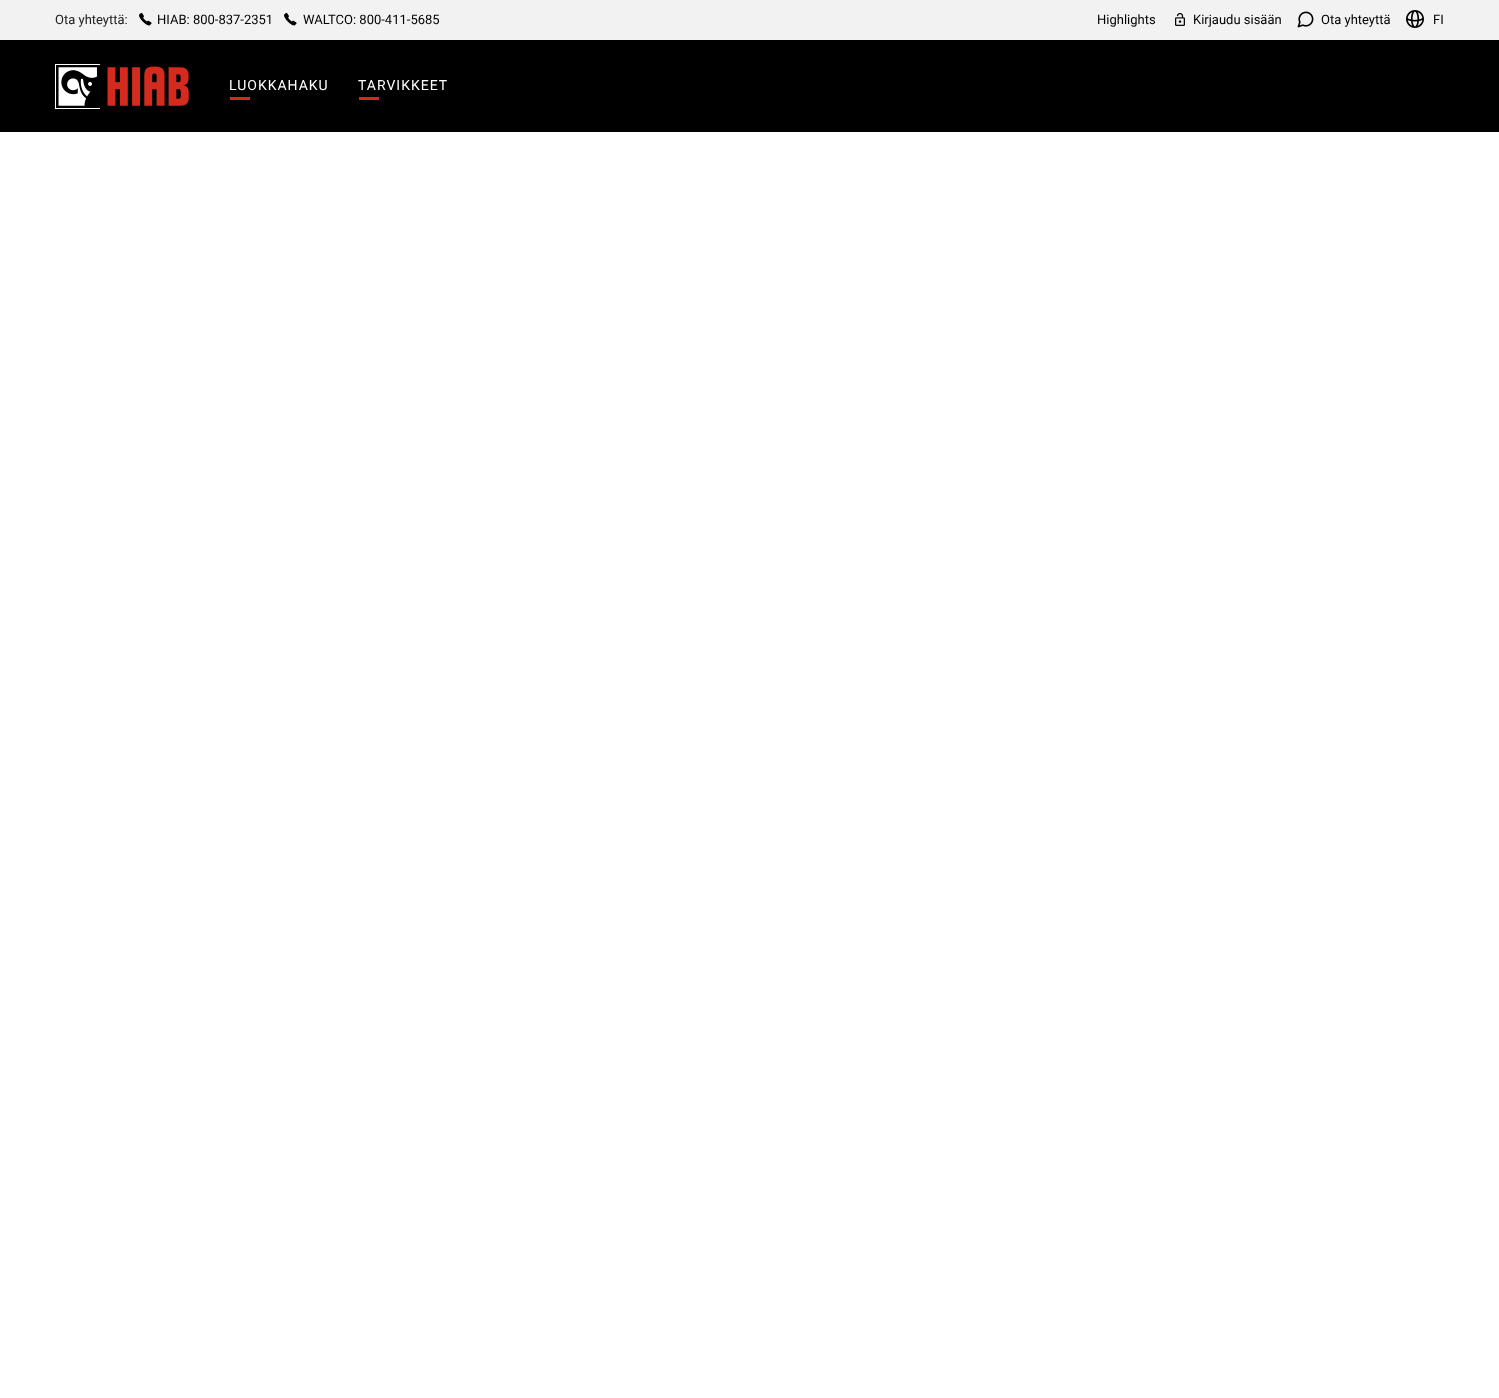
<svg xmlns="http://www.w3.org/2000/svg" width="1499" height="1398">
<rect width="100%" height="100%" fill="#000"/>
<rect width="1499" height="40" fill="#f2f2f2"/>
<text x="55" y="24" style="font-family:Roboto;font-size:13px;fill:#212121">Ota yhteyttä:</text>
<image x="139" y="12" width="13" height="14" href="media/1.png"/>
<text x="157" y="24" style="font-family:Roboto;font-size:13px;fill:#000">HIAB: 800-837-2351</text>
<image x="284" y="12" width="13" height="14" href="media/1.png"/>
<text x="303" y="24" style="font-family:Roboto;font-size:13px;fill:#000">WALTCO: 800-411-5685</text>
<text x="1097" y="24" style="font-family:Roboto;font-size:13px;fill:#000">Highlights</text>
<image x="1175" y="13" width="10" height="13" href="media/2.png"/>
<text x="1193" y="24" style="font-family:Roboto;font-size:13px;fill:#000">Kirjaudu sisään</text>
<image x="1297" y="11" width="17" height="17" href="media/3.png"/>
<text x="1321" y="24" style="font-family:Roboto;font-size:13px;fill:#000">Ota yhteyttä</text>
<image x="1406" y="10" width="18" height="18" href="media/4.png"/>
<text x="1433" y="24" style="font-family:Roboto;font-size:13px;fill:#000">FI</text>
<image x="55" y="64" width="134" height="45" href="media/5.png"/>
<text x="229" y="90" style="font-family:Roboto;font-size:14px;letter-spacing:1px;fill:#fff">LUOKKAHAKU</text>
<rect x="230" y="97" width="20" height="3" fill="#d52b1e"/>
<text x="358" y="90" style="font-family:Roboto;font-size:14px;letter-spacing:1px;fill:#fff">TARVIKKEET</text>
<rect x="359" y="97" width="20" height="3" fill="#d52b1e"/>
<rect y="132" width="1499" height="1266" fill="#fff"/>
</svg>
